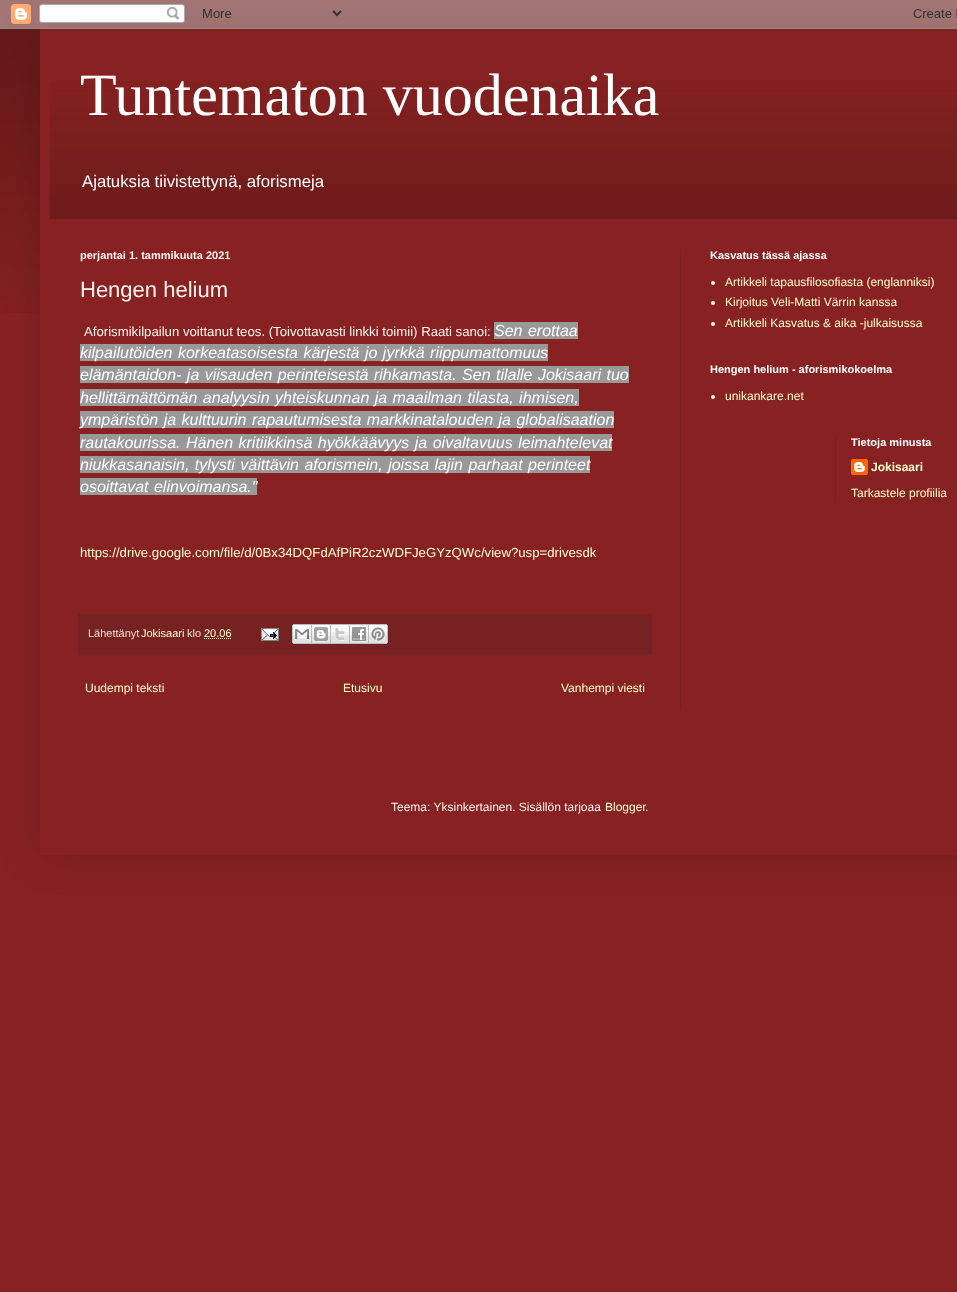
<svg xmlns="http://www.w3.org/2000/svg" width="957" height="1292">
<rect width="100%" height="100%" fill="#822"/>
<image x="0" y="0" width="957" height="313" href="media/1.png"/>
<rect x="40" y="29" width="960" height="826" fill="#00000026" filter="blur(20px)"/>
<image x="0" y="0" width="957" height="29" href="media/2.png"/>
<rect x="40" y="29" width="917" height="826" fill="#822"/>
<image x="50" y="81" width="907" height="138" href="media/3.png"/>
<text x="80" y="115" style="font-family:Liberation Serif;font-size:60px;fill:#fff">Tuntematon vuodenaika</text>
<text x="82" y="187" style="font-family:Liberation Sans;font-size:16.75px;fill:#fff">Ajatuksia tiivistettynä, aforismeja</text>
<rect x="680" y="249" width="1" height="460" fill="#722"/>
<text x="80" y="259" style="font-family:Liberation Sans;font-size:11px;font-weight:bold;fill:#fff5ee">perjantai 1. tammikuuta 2021</text>
<text x="80" y="297" style="font-family:Liberation Sans;font-size:22px;fill:#fff5ee">Hengen helium</text>
<text x="84" y="336" style="font-family:Liberation Sans;font-size:13.2px;fill:#fff5ee">Aforismikilpailun voittanut teos. (Toivottavasti linkki toimii) Raati sanoi:</text>
<rect x="494" y="322" width="84" height="17" fill="#999"/>
<text x="494" y="336" word-spacing="1" style="font-family:Liberation Sans;font-size:16px;font-style:italic;fill:#fff">Sen erottaa</text>
<rect x="80" y="344" width="468" height="17" fill="#999"/>
<text x="80" y="358" word-spacing="1" style="font-family:Liberation Sans;font-size:16px;font-style:italic;fill:#fff">kilpailutöiden korkeatasoisesta kärjestä jo jyrkkä riippumattomuus</text>
<rect x="80" y="366" width="549" height="17" fill="#999"/>
<text x="80" y="380" word-spacing="1" style="font-family:Liberation Sans;font-size:16px;font-style:italic;fill:#fff">elämäntaidon- ja viisauden perinteisestä rihkamasta. Sen tilalle Jokisaari tuo</text>
<rect x="80" y="389" width="499" height="17" fill="#999"/>
<text x="80" y="403" word-spacing="1" style="font-family:Liberation Sans;font-size:16px;font-style:italic;fill:#fff">hellittämättömän analyysin yhteiskunnan ja maailman tilasta, ihmisen,</text>
<rect x="80" y="411" width="534" height="17" fill="#999"/>
<text x="80" y="425" word-spacing="1" style="font-family:Liberation Sans;font-size:16px;font-style:italic;fill:#fff">ympäristön ja kulttuurin rapautumisesta markkinatalouden ja globalisaation</text>
<rect x="80" y="434" width="532" height="17" fill="#999"/>
<text x="80" y="448" word-spacing="1" style="font-family:Liberation Sans;font-size:16px;font-style:italic;fill:#fff">rautakourissa. Hänen kritiikkinsä hyökkäävyys ja oivaltavuus leimahtelevat</text>
<rect x="80" y="456" width="510" height="17" fill="#999"/>
<text x="80" y="470" word-spacing="1" style="font-family:Liberation Sans;font-size:16px;font-style:italic;fill:#fff">niukkasanaisin, tylysti väittävin aforismein, joissa lajin parhaat perinteet</text>
<rect x="80" y="478" width="177" height="17" fill="#999"/>
<text x="80" y="492" word-spacing="1" style="font-family:Liberation Sans;font-size:16px;font-style:italic;fill:#fff">osoittavat elinvoimansa."</text>
<text x="80" y="557" style="font-family:Liberation Sans;font-size:13.2px;fill:#ffc">https://drive.google.com/file/d/0Bx34DQFdAfPiR2czWDFJeGYzQWc/view?usp=drivesdk</text>
<rect x="78" y="614" width="574" height="41" fill="#722"/>
<text x="88" y="637" style="font-family:Liberation Sans;font-size:11px;fill:#edc">Lähettänyt</text>
<text x="141" y="637" style="font-family:Liberation Sans;font-size:11px;fill:#ffc">Jokisaari</text>
<text x="187" y="637" style="font-family:Liberation Sans;font-size:11px;fill:#edc">klo</text>
<text x="204" y="637" style="font-family:Liberation Sans;font-size:11px;fill:#ffc">20.06</text>
<path d="M204 638.5h27" fill="none" stroke="#ffc" stroke-dasharray="1 1"/>
<image x="261" y="628" width="18" height="13" href="media/4.png"/>
<image x="292" y="624" width="20" height="20" href="media/5.png"/>
<image x="312" y="624" width="19" height="20" href="media/6.png"/>
<image x="331" y="624" width="19" height="20" href="media/7.png"/>
<image x="350" y="624" width="19" height="20" href="media/8.png"/>
<image x="369" y="624" width="19" height="20" href="media/9.png"/>
<text x="85" y="692" style="font-family:Liberation Sans;font-size:12px;fill:#ffc">Uudempi teksti</text>
<text x="343" y="692" style="font-family:Liberation Sans;font-size:12px;fill:#ffc">Etusivu</text>
<text x="561" y="692" style="font-family:Liberation Sans;font-size:12px;fill:#ffc">Vanhempi viesti</text>
<text x="710" y="259" style="font-family:Liberation Sans;font-size:11px;font-weight:bold;fill:#fff">Kasvatus tässä ajassa</text>
<circle cx="713" cy="283" r="2" fill="#fff5ee"/>
<text x="725" y="286" style="font-family:Liberation Sans;font-size:12px;fill:#ffc">Artikkeli tapausfilosofiasta (englanniksi)</text>
<circle cx="713" cy="303" r="2" fill="#fff5ee"/>
<text x="725" y="306" style="font-family:Liberation Sans;font-size:12px;fill:#ffc">Kirjoitus Veli-Matti Värrin kanssa</text>
<circle cx="713" cy="324" r="2" fill="#fff5ee"/>
<text x="725" y="327" style="font-family:Liberation Sans;font-size:12px;fill:#ffc">Artikkeli Kasvatus &amp; aika -julkaisussa</text>
<text x="710" y="373" style="font-family:Liberation Sans;font-size:11px;font-weight:bold;fill:#fff">Hengen helium - aforismikokoelma</text>
<circle cx="713" cy="397" r="2" fill="#fff5ee"/>
<text x="725" y="400" style="font-family:Liberation Sans;font-size:12px;fill:#ffc">unikankare.net</text>
<rect x="835" y="436" width="1" height="66" fill="#722"/>
<text x="851" y="446" style="font-family:Liberation Sans;font-size:11px;font-weight:bold;fill:#fff">Tietoja minusta</text>
<image x="851" y="459" width="17" height="16" href="media/10.png"/>
<text x="871" y="471" style="font-family:Liberation Sans;font-size:12px;font-weight:bold;fill:#ffc">Jokisaari</text>
<text x="851" y="497" style="font-family:Liberation Sans;font-size:12px;fill:#ffc">Tarkastele profiilia</text>
<text x="391" y="811" style="font-family:Liberation Sans;font-size:12px;fill:#fff5ee">Teema: Yksinkertainen. Sisällön tarjoaa</text>
<text x="605" y="811" style="font-family:Liberation Sans;font-size:12px;fill:#ffc">Blogger</text>
<text x="645" y="811" style="font-family:Liberation Sans;font-size:12px;fill:#fff5ee">.</text>
</svg>
